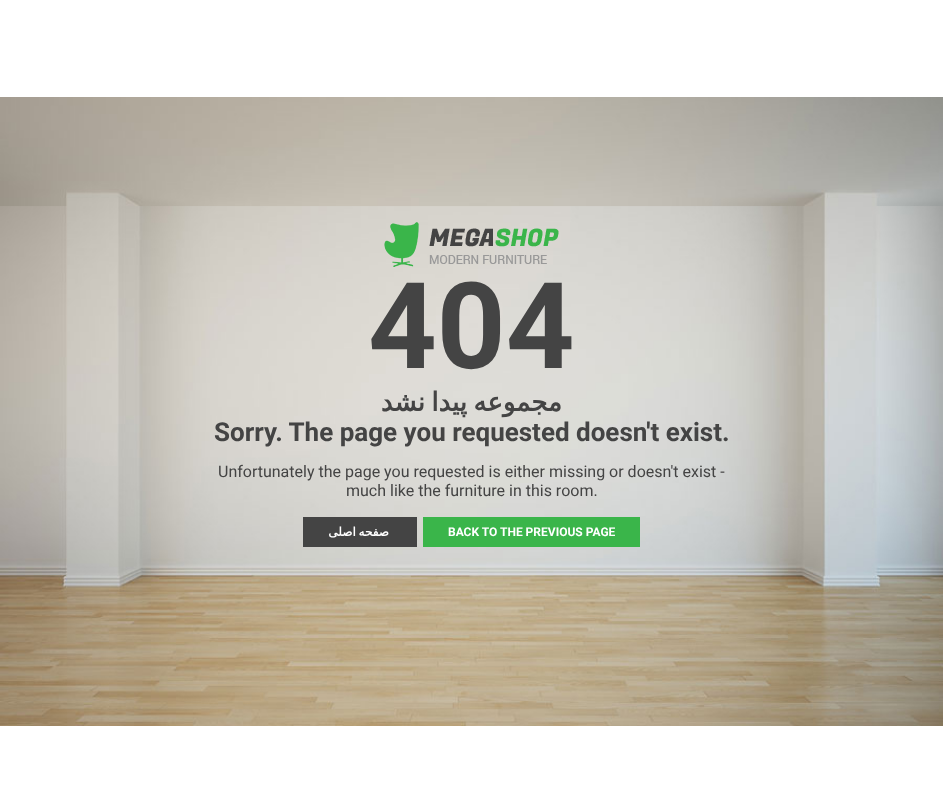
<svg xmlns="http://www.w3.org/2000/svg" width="943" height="794">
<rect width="100%" height="100%" fill="#fff"/>
<image x="0" y="97" width="943" height="629" href="media/1.png"/>
<image x="384" y="222" width="175" height="45" href="media/2.png"/>
<text x="368" y="368" style="font-family:Roboto;font-size:120px;font-weight:bold;fill:#444">404</text>
<text x="562" y="411" word-spacing="-2" style="font-family:DejaVu Sans;font-size:26px;font-weight:bold;direction:rtl;fill:#444">مجموعه پیدا نشد</text>
<text x="214" y="441" style="font-family:Roboto;font-size:26px;font-weight:bold;fill:#444">Sorry. The page you requested doesn't exist.</text>
<text x="218" y="477" style="font-family:Roboto;font-size:16px;fill:#444">Unfortunately the page you requested is either missing or doesn't exist -</text>
<text x="346" y="496" style="font-family:Roboto;font-size:16px;fill:#444">much like the furniture in this room.</text>
<rect x="303" y="517" width="114" height="30" fill="#444"/>
<text x="389" y="536" word-spacing="-1" style="font-family:DejaVu Sans;font-size:12px;font-weight:bold;direction:rtl;fill:#fff">صفحه اصلی</text>
<rect x="423" y="517" width="217" height="30" fill="#3ab54a"/>
<text x="448" y="536" style="font-family:Roboto;font-size:12px;font-weight:bold;fill:#fff">BACK TO THE PREVIOUS PAGE</text>
</svg>
